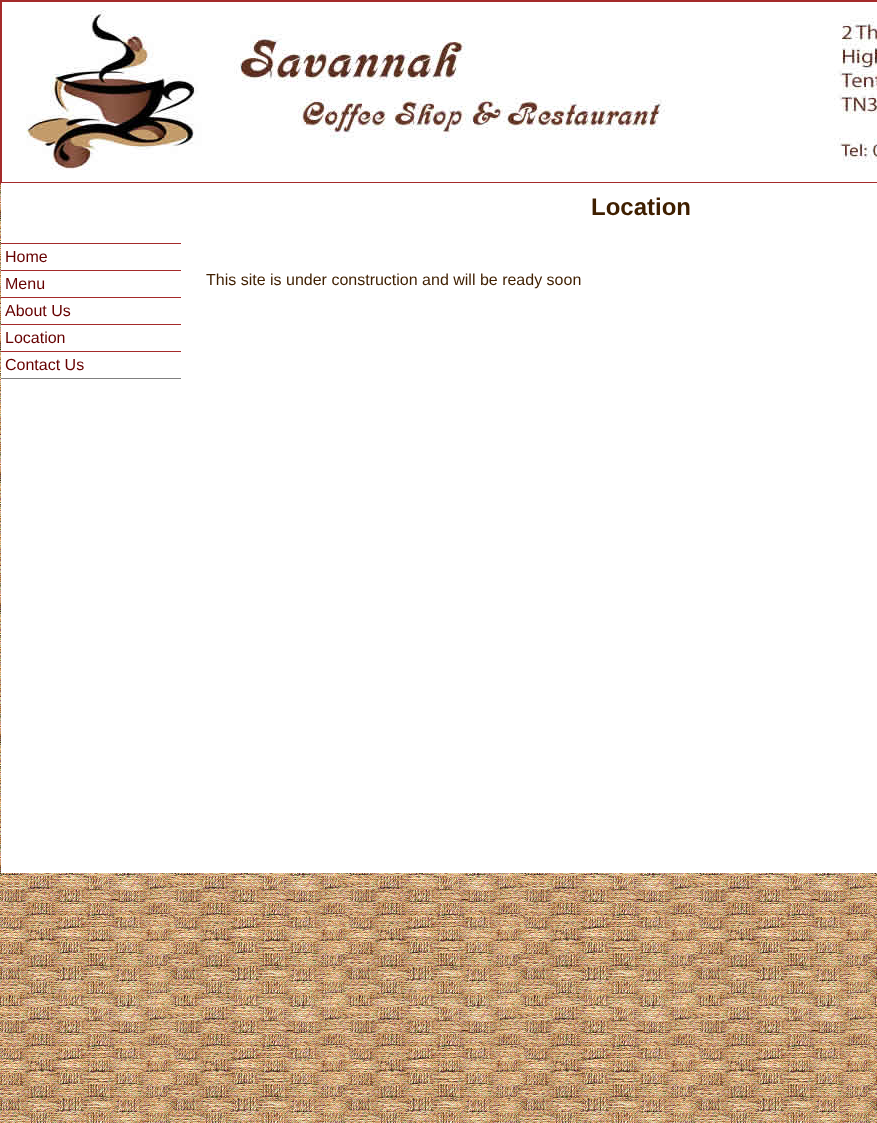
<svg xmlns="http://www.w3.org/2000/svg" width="877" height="1123">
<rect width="100%" height="100%" fill="#fff"/>
<image x="0" y="184" width="877" height="939" href="media/1.png"/>
<rect x="0.5" y="0.5" width="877" height="183" fill="none" stroke="#a52a2a"/>
<image x="26" y="10" width="851" height="160" href="media/2.png"/>
<rect x="1.5" y="1.5" width="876" height="181" fill="none" stroke="#a52a2a"/>
<rect x="1" y="183" width="876" height="690" fill="#fff"/>
<rect x="1" y="378" width="180" height="1" fill="#808080"/>
<rect x="1" y="243" width="180" height="1" fill="#a52a2a"/>
<text x="5" y="262" style="font-family:Liberation Sans;font-size:16px;fill:#600">Home</text>
<rect x="1" y="270" width="180" height="1" fill="#a52a2a"/>
<text x="5" y="289" style="font-family:Liberation Sans;font-size:16px;fill:#600">Menu</text>
<rect x="1" y="297" width="180" height="1" fill="#a52a2a"/>
<text x="5" y="316" style="font-family:Liberation Sans;font-size:16px;fill:#600">About Us</text>
<rect x="1" y="324" width="180" height="1" fill="#a52a2a"/>
<text x="5" y="343" style="font-family:Liberation Sans;font-size:16px;fill:#600">Location</text>
<rect x="1" y="351" width="180" height="1" fill="#a52a2a"/>
<text x="5" y="370" style="font-family:Liberation Sans;font-size:16px;fill:#600">Contact Us</text>
<text x="591" y="215" style="font-family:Liberation Sans;font-size:24px;font-weight:bold;fill:#3f1f00">Location</text>
<text x="206" y="285" style="font-family:Liberation Sans;font-size:16px;fill:#3f1f00">This site is under construction and will be ready soon</text>
</svg>
